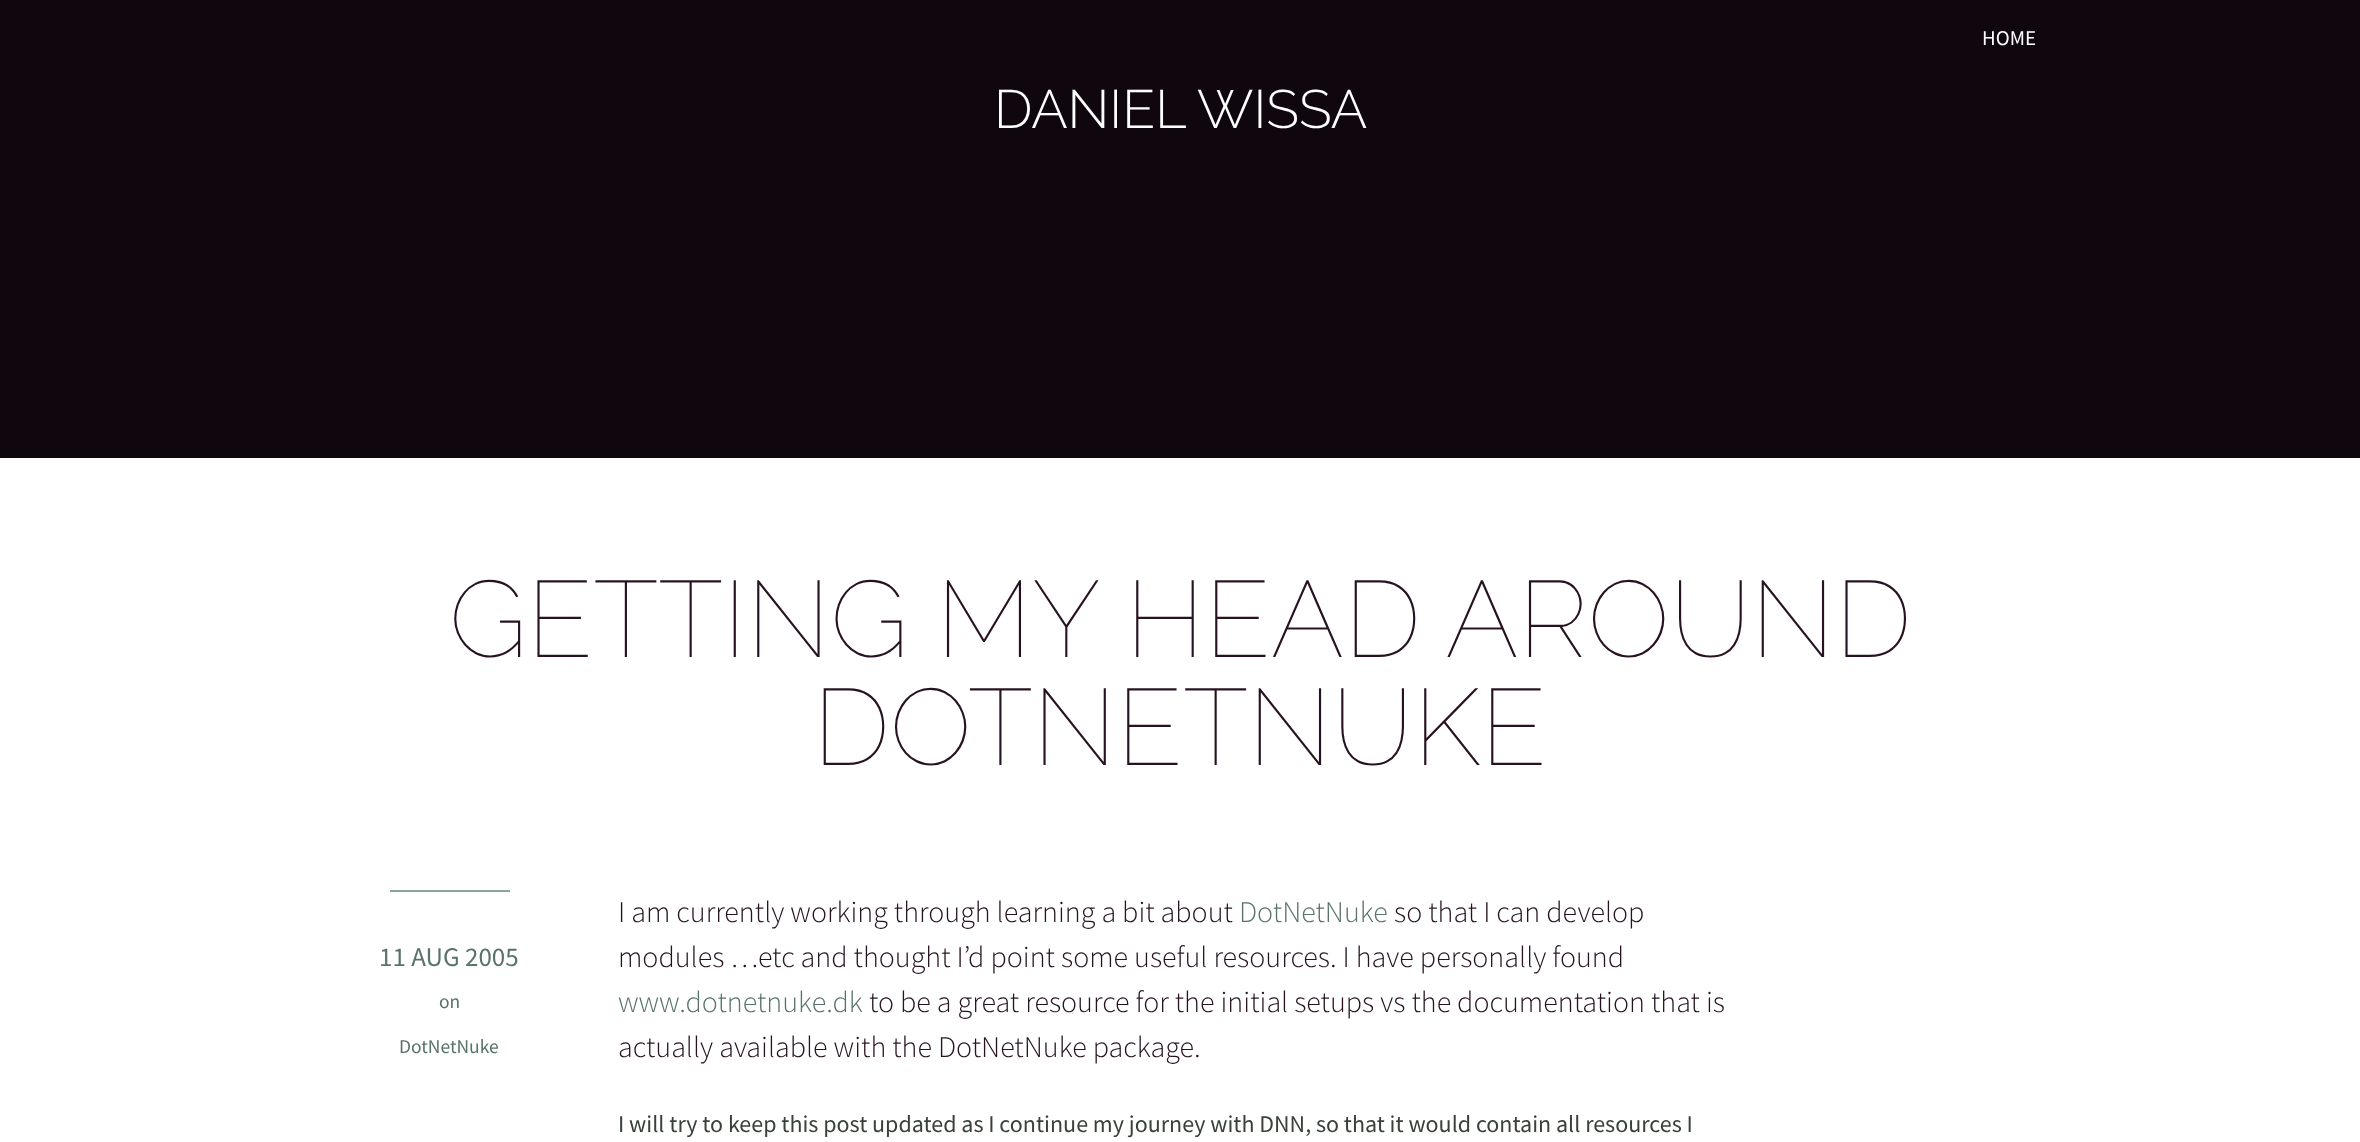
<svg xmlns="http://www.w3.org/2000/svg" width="2360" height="1142">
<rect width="100%" height="100%" fill="#fff"/>
<rect width="2360" height="458" fill="#0f070d"/>
<text x="1982" y="45" style="font-family:Source Sans Pro;font-size:21px;fill:#fff">HOME</text>
<text x="994" y="128" style="font-family:Raleway;font-size:54px;font-weight:300;fill:#fff">DANIEL WISSA</text>
<text x="449" y="657" style="font-family:Raleway;font-size:108px;font-weight:100;fill:#261220">GETTING MY HEAD AROUND</text>
<text x="813" y="765" style="font-family:Raleway;font-size:108px;font-weight:100;fill:#261220">DOTNETNUKE</text>
<rect x="390" y="890" width="120" height="2" fill="#8aa69c"/>
<text x="379" y="966" style="font-family:Source Sans Pro;font-size:27px;fill:#597369">11 AUG 2005</text>
<text x="439" y="1008" style="font-family:Source Sans Pro;font-size:19.5px;fill:#597369">on</text>
<text x="399" y="1053" style="font-family:Source Sans Pro;font-size:19.5px;fill:#597369">DotNetNuke</text>
<text x="618" y="922" style="font-family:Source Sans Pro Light;font-size:30px;font-weight:300;fill:#261220">I am currently working through learning a bit about</text>
<text x="1239" y="922" style="font-family:Source Sans Pro Light;font-size:30px;font-weight:300;fill:#597369">DotNetNuke</text>
<text x="1394" y="922" style="font-family:Source Sans Pro Light;font-size:30px;font-weight:300;fill:#261220">so that I can develop</text>
<text x="618" y="967" style="font-family:Source Sans Pro Light;font-size:30px;font-weight:300;fill:#261220">modules …etc and thought I’d point some useful resources. I have personally found</text>
<text x="618" y="1012" style="font-family:Source Sans Pro Light;font-size:30px;font-weight:300;fill:#597369">www.dotnetnuke.dk</text>
<text x="869" y="1012" style="font-family:Source Sans Pro Light;font-size:30px;font-weight:300;fill:#261220">to be a great resource for the initial setups vs the documentation that is</text>
<text x="618" y="1057" style="font-family:Source Sans Pro Light;font-size:30px;font-weight:300;fill:#261220">actually available with the DotNetNuke package.</text>
<text x="618" y="1132" style="font-family:Source Sans Pro;font-size:24px;fill:#38413a">I will try to keep this post updated as I continue my journey with DNN, so that it would contain all resources I</text>
</svg>
